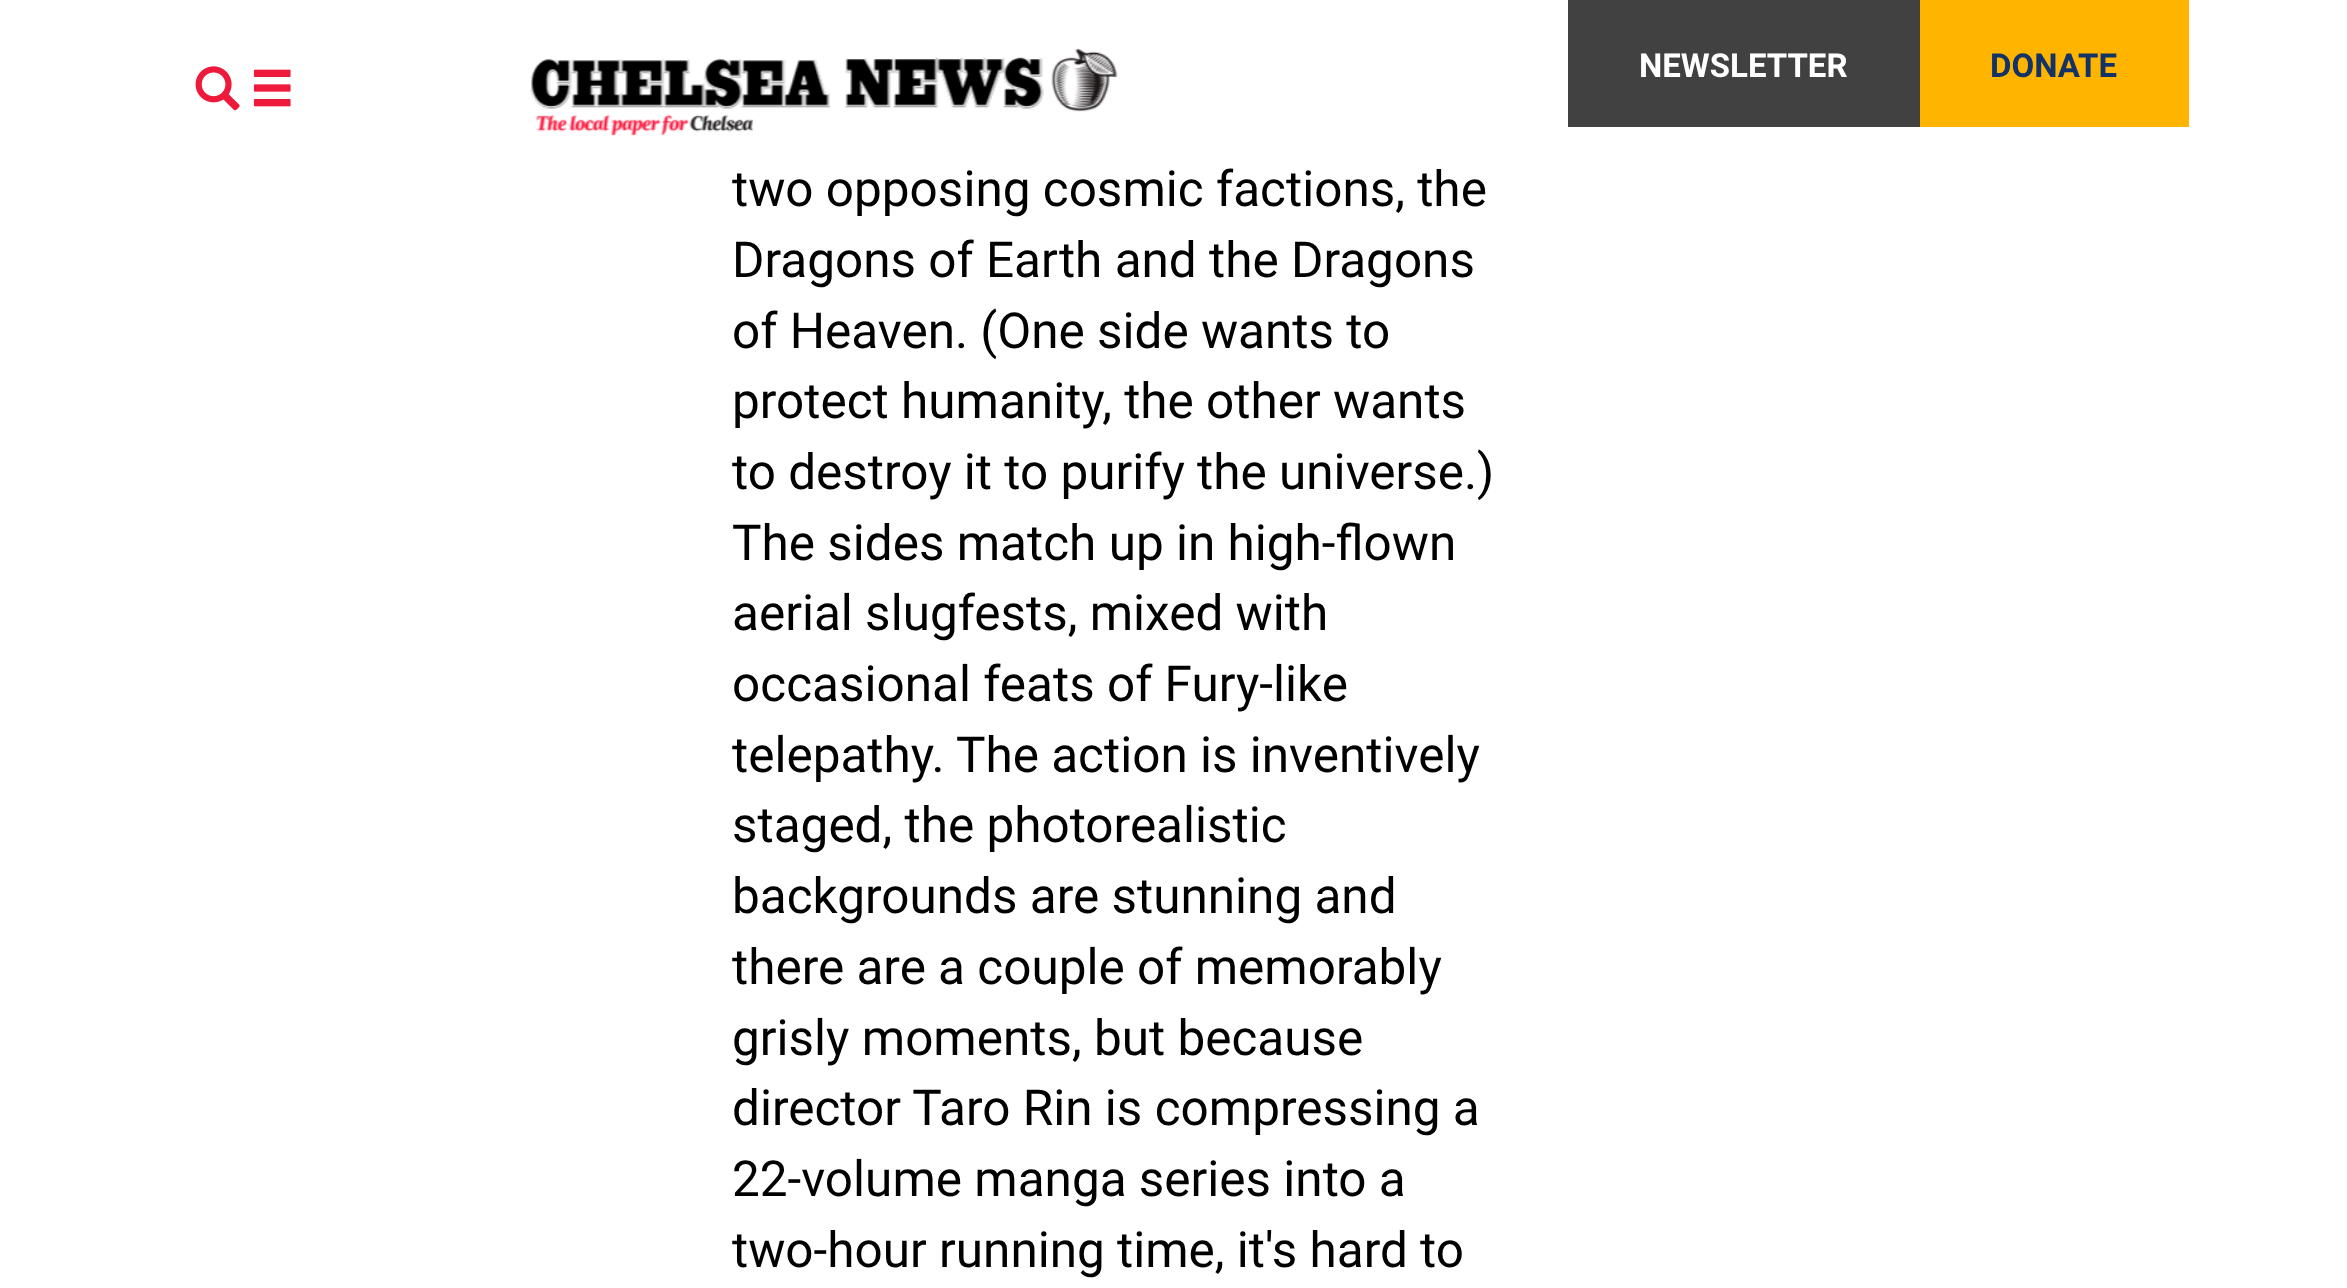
<svg xmlns="http://www.w3.org/2000/svg" width="2347" height="1288">
<rect width="100%" height="100%" fill="#fff"/>
<image x="195" y="66" width="96" height="45" href="media/1.png"/>
<image x="530" y="48" width="588" height="88" href="media/2.png"/>
<rect x="1568" width="352" height="127" fill="#414141"/>
<text x="1639" y="77" style="font-family:Roboto;font-size:33px;font-weight:bold;fill:#fff">NEWSLETTER</text>
<rect x="1920" width="269" height="127" fill="#ffb400"/>
<text x="1990" y="77" style="font-family:Roboto;font-size:33px;font-weight:bold;fill:#133367">DONATE</text>
<text x="732" y="206" style="font-family:Roboto;font-size:49.5px;fill:#000">two opposing cosmic factions, the</text>
<text x="732" y="277" style="font-family:Roboto;font-size:49.5px;fill:#000">Dragons of Earth and the Dragons</text>
<text x="732" y="348" style="font-family:Roboto;font-size:49.5px;fill:#000">of Heaven. (One side wants to</text>
<text x="732" y="418" style="font-family:Roboto;font-size:49.5px;fill:#000">protect humanity, the other wants</text>
<text x="732" y="489" style="font-family:Roboto;font-size:49.5px;fill:#000">to destroy it to purify the universe.)</text>
<text x="732" y="560" style="font-family:Roboto;font-size:49.5px;fill:#000">The sides match up in high-flown</text>
<text x="732" y="630" style="font-family:Roboto;font-size:49.5px;fill:#000">aerial slugfests, mixed with</text>
<text x="732" y="701" style="font-family:Roboto;font-size:49.5px;fill:#000">occasional feats of Fury-like</text>
<text x="732" y="772" style="font-family:Roboto;font-size:49.5px;fill:#000">telepathy. The action is inventively</text>
<text x="732" y="842" style="font-family:Roboto;font-size:49.5px;fill:#000">staged, the photorealistic</text>
<text x="732" y="913" style="font-family:Roboto;font-size:49.5px;fill:#000">backgrounds are stunning and</text>
<text x="732" y="984" style="font-family:Roboto;font-size:49.5px;fill:#000">there are a couple of memorably</text>
<text x="732" y="1055" style="font-family:Roboto;font-size:49.5px;fill:#000">grisly moments, but because</text>
<text x="732" y="1125" style="font-family:Roboto;font-size:49.5px;fill:#000">director Taro Rin is compressing a</text>
<text x="732" y="1196" style="font-family:Roboto;font-size:49.5px;fill:#000">22-volume manga series into a</text>
<text x="732" y="1267" style="font-family:Roboto;font-size:49.5px;fill:#000">two-hour running time, it's hard to</text>
</svg>
